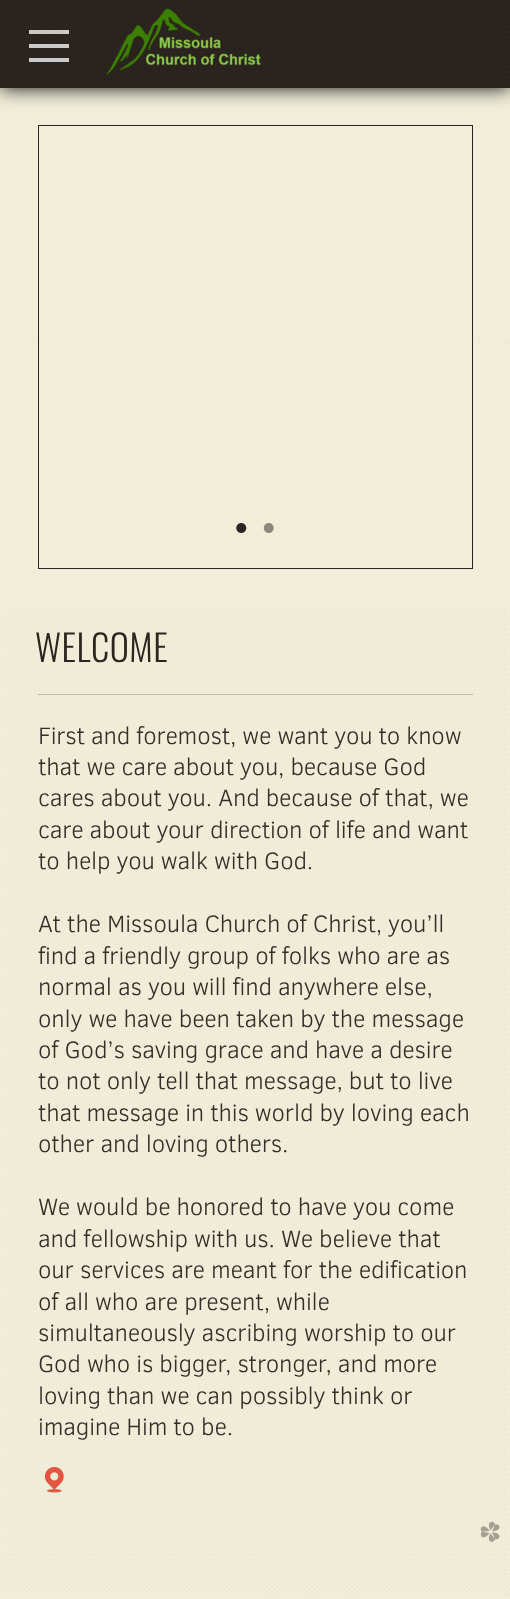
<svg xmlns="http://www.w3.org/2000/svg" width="510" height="1599">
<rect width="100%" height="100%" fill="#f0eed8"/>
<image x="4" y="1554" width="506" height="41" href="media/1.png"/>
<rect width="510" height="88" fill="#0d0b0a" filter="blur(9.5px)"/>
<rect width="510" height="88" fill="#2b241f"/>
<image x="4" y="4" width="506" height="81" href="media/2.png"/>
<rect x="29" y="30" width="40" height="4" fill="#f4f4f4cc"/>
<rect x="29" y="44" width="40" height="4" fill="#f4f4f4cc"/>
<rect x="29" y="58" width="40" height="4" fill="#f4f4f4cc"/>
<image x="106" y="8" width="155" height="67" href="media/3.png"/>
<image x="4" y="342" width="506" height="1" href="media/4.png"/>
<rect x="38.5" y="125.5" width="434" height="443" fill="none" stroke="#2b241f"/>
<image x="236" y="523" width="11" height="10" href="media/5.png"/>
<image x="263" y="523" width="11" height="10" href="media/6.png"/>
<image x="4" y="609" width="506" height="941" href="media/7.png"/>
<rect x="38" y="694" width="435" height="1" fill="#bfbcaa"/>
<text x="35" y="662" style="font-family:Oswald;font-size:36.5px;font-weight:300;letter-spacing:0.5px;fill:#2b241f">WELCOME</text>
<text x="38" y="744" style="font-family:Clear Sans;font-size:24.2px;font-weight:300;letter-spacing:-0.2px;fill:#352e28">First and foremost, we want you to know</text>
<text x="38" y="775" style="font-family:Clear Sans;font-size:24.2px;font-weight:300;letter-spacing:-0.2px;fill:#352e28">that we care about you, because God</text>
<text x="38" y="806" style="font-family:Clear Sans;font-size:24.2px;font-weight:300;letter-spacing:-0.2px;fill:#352e28">cares about you. And because of that, we</text>
<text x="38" y="838" style="font-family:Clear Sans;font-size:24.2px;font-weight:300;letter-spacing:-0.2px;fill:#352e28">care about your direction of life and want</text>
<text x="38" y="869" style="font-family:Clear Sans;font-size:24.2px;font-weight:300;letter-spacing:-0.2px;fill:#352e28">to help you walk with God.</text>
<text x="38" y="932" style="font-family:Clear Sans;font-size:24.2px;font-weight:300;letter-spacing:-0.2px;fill:#352e28">At the Missoula Church of Christ, you’ll</text>
<text x="38" y="964" style="font-family:Clear Sans;font-size:24.2px;font-weight:300;letter-spacing:-0.2px;fill:#352e28">find a friendly group of folks who are as</text>
<text x="38" y="995" style="font-family:Clear Sans;font-size:24.2px;font-weight:300;letter-spacing:-0.2px;fill:#352e28">normal as you will find anywhere else,</text>
<text x="38" y="1027" style="font-family:Clear Sans;font-size:24.2px;font-weight:300;letter-spacing:-0.2px;fill:#352e28">only we have been taken by the message</text>
<text x="38" y="1058" style="font-family:Clear Sans;font-size:24.2px;font-weight:300;letter-spacing:-0.2px;fill:#352e28">of God’s saving grace and have a desire</text>
<text x="38" y="1089" style="font-family:Clear Sans;font-size:24.2px;font-weight:300;letter-spacing:-0.2px;fill:#352e28">to not only tell that message, but to live</text>
<text x="38" y="1121" style="font-family:Clear Sans;font-size:24.2px;font-weight:300;letter-spacing:-0.2px;fill:#352e28">that message in this world by loving each</text>
<text x="38" y="1152" style="font-family:Clear Sans;font-size:24.2px;font-weight:300;letter-spacing:-0.2px;fill:#352e28">other and loving others.</text>
<text x="38" y="1215" style="font-family:Clear Sans;font-size:24.2px;font-weight:300;letter-spacing:-0.2px;fill:#352e28">We would be honored to have you come</text>
<text x="38" y="1247" style="font-family:Clear Sans;font-size:24.2px;font-weight:300;letter-spacing:-0.2px;fill:#352e28">and fellowship with us. We believe that</text>
<text x="38" y="1278" style="font-family:Clear Sans;font-size:24.2px;font-weight:300;letter-spacing:-0.2px;fill:#352e28">our services are meant for the edification</text>
<text x="38" y="1310" style="font-family:Clear Sans;font-size:24.2px;font-weight:300;letter-spacing:-0.2px;fill:#352e28">of all who are present, while</text>
<text x="38" y="1341" style="font-family:Clear Sans;font-size:24.2px;font-weight:300;letter-spacing:-0.2px;fill:#352e28">simultaneously ascribing worship to our</text>
<text x="38" y="1372" style="font-family:Clear Sans;font-size:24.2px;font-weight:300;letter-spacing:-0.2px;fill:#352e28">God who is bigger, stronger, and more</text>
<text x="38" y="1404" style="font-family:Clear Sans;font-size:24.2px;font-weight:300;letter-spacing:-0.2px;fill:#352e28">loving than we can possibly think or</text>
<text x="38" y="1435" style="font-family:Clear Sans;font-size:24.2px;font-weight:300;letter-spacing:-0.2px;fill:#352e28">imagine Him to be.</text>
<image x="44" y="1467" width="20" height="26" href="media/8.png"/>
<image x="480" y="1521" width="20" height="21" href="media/9.png"/>
</svg>
